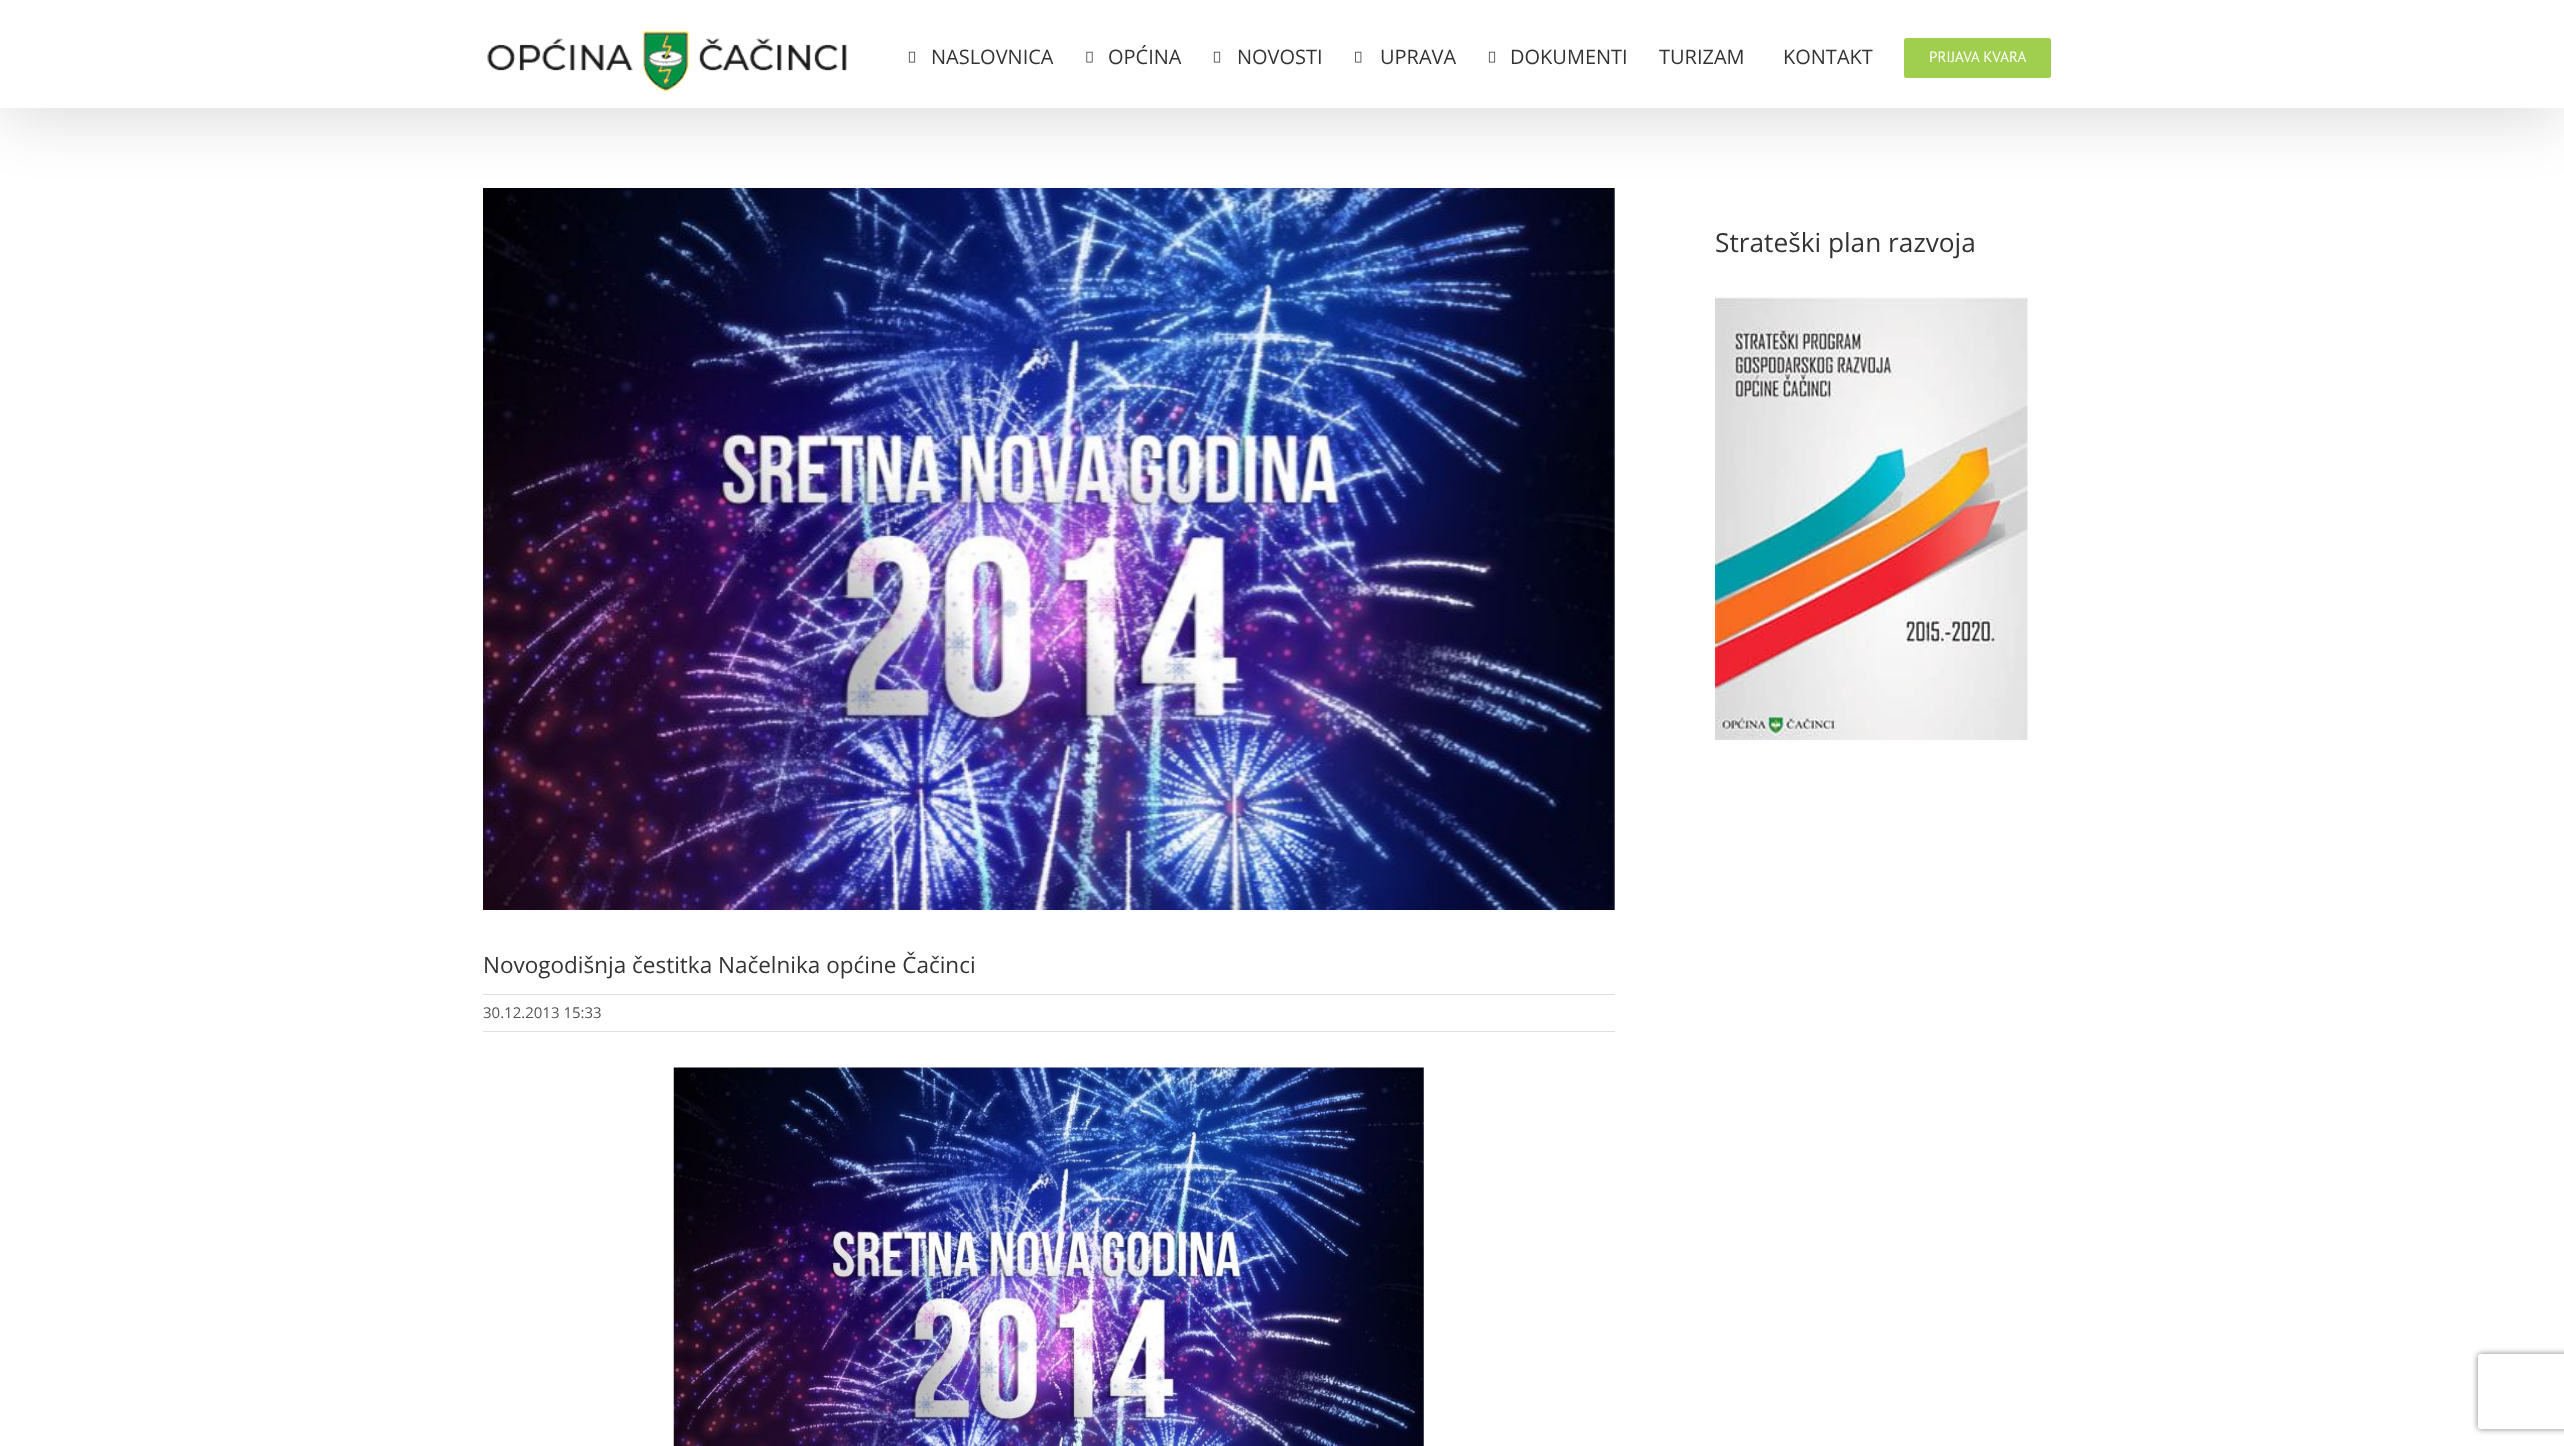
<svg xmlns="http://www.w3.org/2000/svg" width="2564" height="1446">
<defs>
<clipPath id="clip1"><path d="M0 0h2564v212h-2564zm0 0h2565v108h-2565z" clip-rule="evenodd"/></clipPath>
<clipPath id="clip2"><path d="M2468 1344h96v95h-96zm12.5 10h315c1.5 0 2.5 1 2.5 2.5v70c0 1.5-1 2.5-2.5 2.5h-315c-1.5 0-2.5-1-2.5-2.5v-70c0-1.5 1-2.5 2.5-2.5z" clip-rule="evenodd"/></clipPath>
</defs>
<rect width="100%" height="100%" fill="#fff"/>
<image x="483" y="188" width="1132" height="722" href="media/6.png"/>
<g clip-path="url(#clip1)">
<rect x="3" y="15" width="2560" height="103" fill="#00000024" filter="blur(31px)"/>
</g>
<rect y="107" width="2564" height="1" fill="#ffffffbd"/>
<image x="487" y="31" width="360" height="61" href="media/1.png"/>
<image x="908" y="51" width="8" height="12" href="media/2.png"/>
<text x="931" y="64" style="font-family:Open Sans;font-size:20px;fill:#333">NASLOVNICA</text>
<image x="1086" y="51" width="7" height="12" href="media/3.png"/>
<text x="1108" y="64" style="font-family:Open Sans;font-size:20px;fill:#333">OPĆINA</text>
<image x="1213" y="51" width="8" height="12" href="media/2.png"/>
<text x="1237" y="64" style="font-family:Open Sans;font-size:20px;fill:#333">NOVOSTI</text>
<image x="1355" y="51" width="7" height="12" href="media/4.png"/>
<text x="1380" y="64" style="font-family:Open Sans;font-size:20px;fill:#333">UPRAVA</text>
<image x="1488" y="51" width="8" height="12" href="media/2.png"/>
<text x="1510" y="64" style="font-family:Open Sans;font-size:20px;fill:#333">DOKUMENTI</text>
<text x="1659" y="64" style="font-family:Open Sans;font-size:20px;fill:#333">TURIZAM</text>
<text x="1783" y="64" style="font-family:Open Sans;font-size:20px;fill:#333">KONTAKT</text>
<rect x="1904" y="38" width="147" height="40" rx="2.5" fill="#a0ce4e"/>
<text x="1929" y="62" style="font-family:PT Sans;font-size:15px;fill:#fff">PRIJAVA KVARA</text>
<text x="1715" y="252" style="font-family:Open Sans;font-size:26.25px;fill:#333">Strateški plan razvoja</text>
<image x="1715" y="297" width="313" height="443" href="media/5.png"/>
<text x="483" y="973" style="font-family:Open Sans;font-size:22.5px;fill:#333">Novogodišnja čestitka Načelnika općine Čačinci</text>
<rect x="483" y="994" width="1132" height="1" fill="#e0dede"/>
<rect x="483" y="1031" width="1132" height="1" fill="#e0dede"/>
<text x="483" y="1018" style="font-family:Open Sans;font-size:15px;fill:#545454">30.12.2013 15:33</text>
<image x="673" y="1067" width="751" height="379" href="media/7.png"/>
<g clip-path="url(#clip2)">
<rect x="2478" y="1354" width="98" height="75" rx="2.5" fill="#808080" filter="blur(3px)"/>
</g>
</svg>
